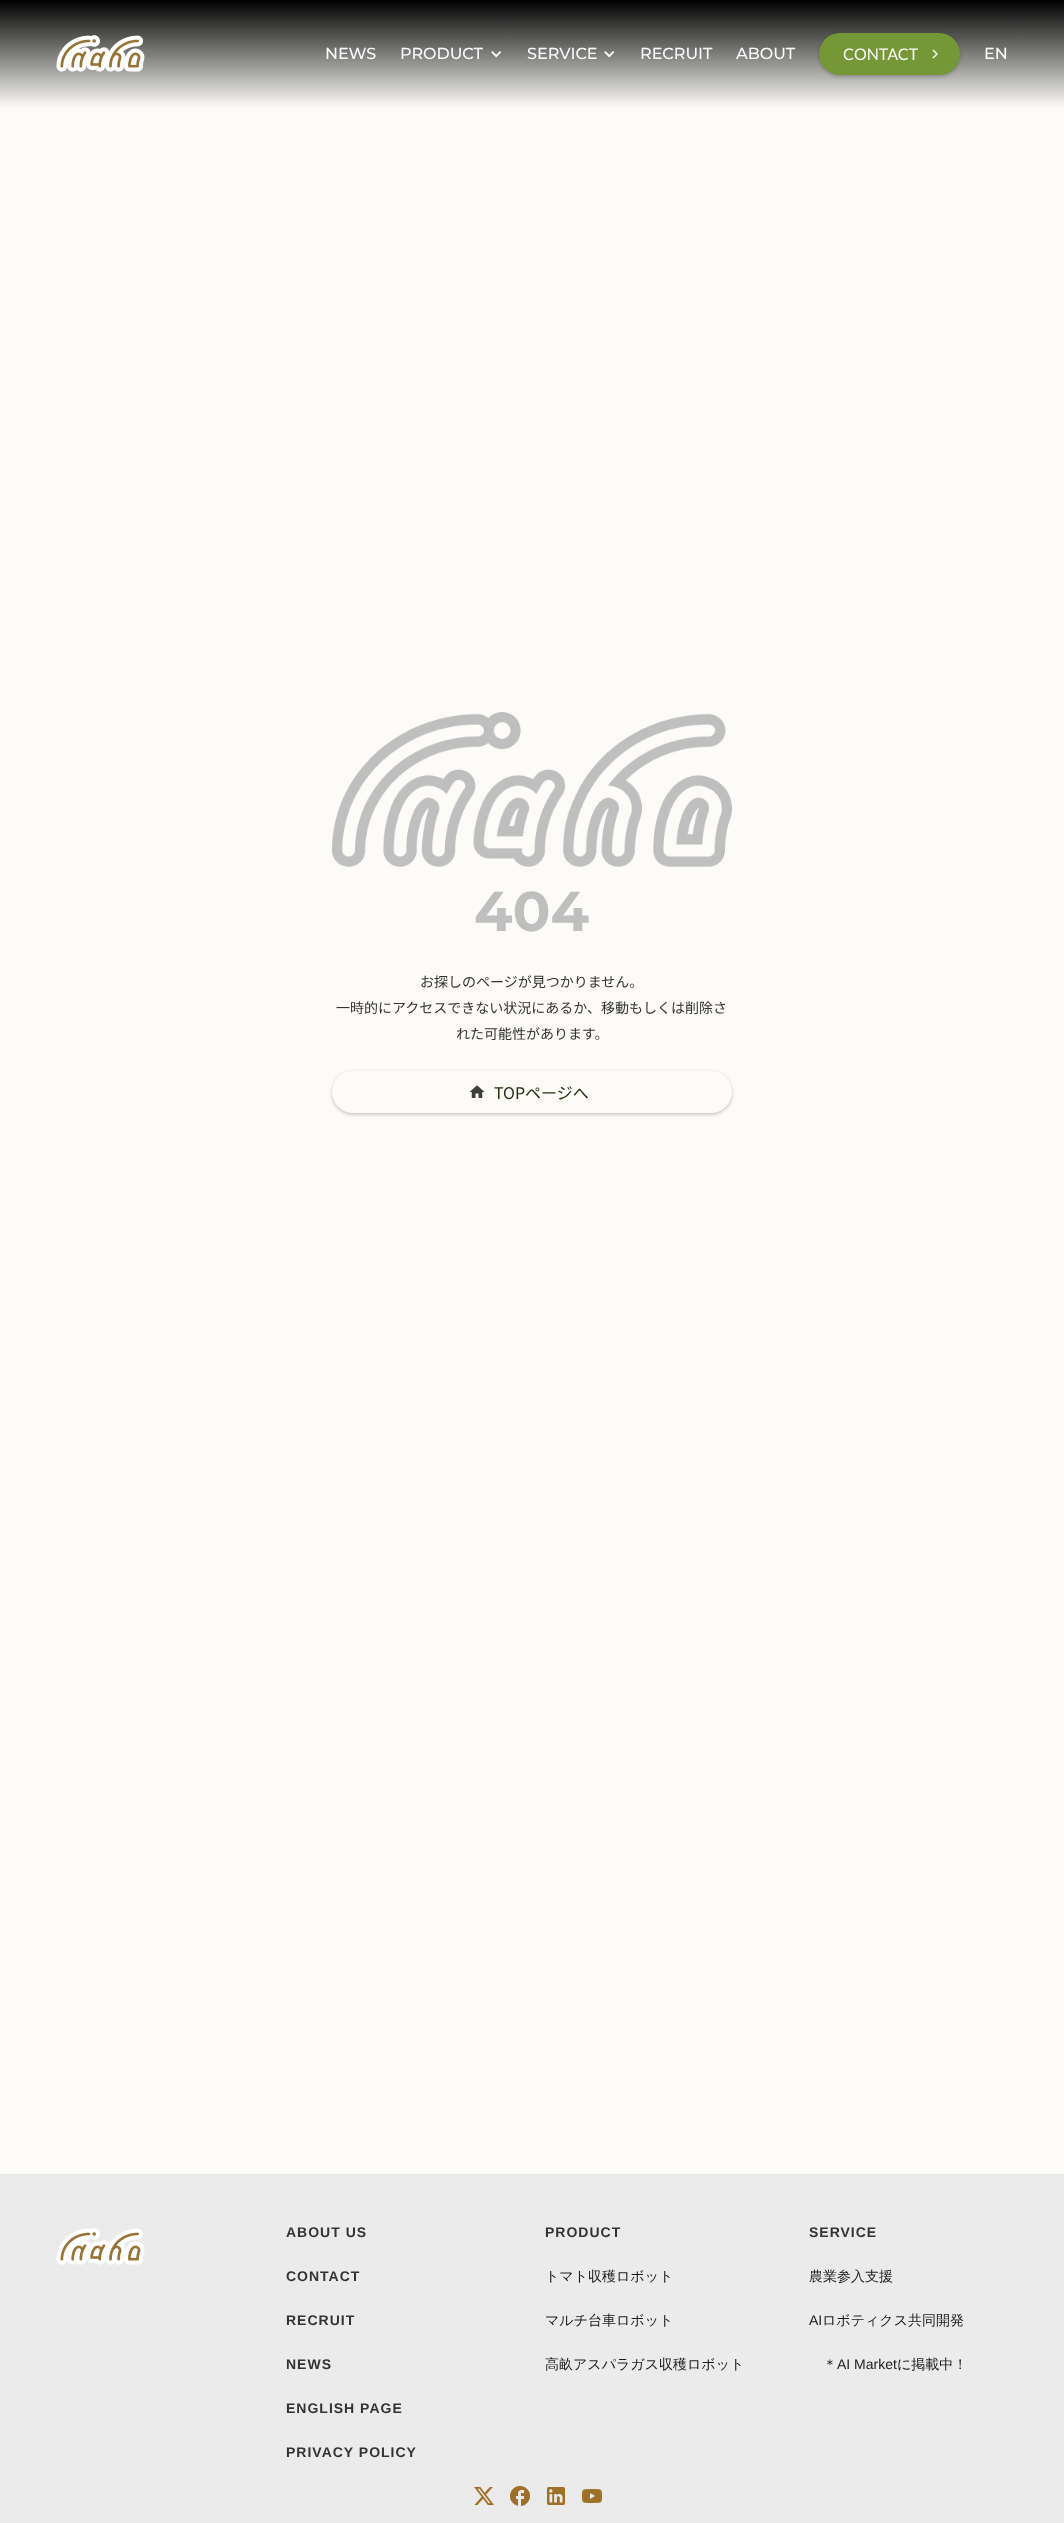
<svg xmlns="http://www.w3.org/2000/svg" width="1064" height="2523">
<defs>
<linearGradient id="g1" gradientUnits="userSpaceOnUse" x1="532" y1="0" x2="532" y2="108"><stop offset="0" stop-color="#000"/><stop offset="1" stop-color="#fcfbf7"/></linearGradient>
</defs>
<rect width="100%" height="100%" fill="#fcfbf7"/>
<rect width="1064" height="107" fill="url(#g1)"/>
<image x="56" y="35" width="89" height="37" href="media/1.png"/>
<text x="325" y="59" style="font-family:Montserrat;font-size:16px;font-weight:500;fill:#fafafa">NEWS</text>
<text x="400" y="59" style="font-family:Montserrat;font-size:16px;font-weight:500;fill:#fafafa">PRODUCT</text>
<image x="491" y="51" width="11" height="7" href="media/2.png"/>
<text x="527" y="59" style="font-family:Montserrat;font-size:16px;font-weight:500;fill:#fafafa">SERVICE</text>
<image x="604" y="51" width="11" height="7" href="media/2.png"/>
<text x="640" y="59" style="font-family:Montserrat;font-size:16px;font-weight:500;fill:#fafafa">RECRUIT</text>
<text x="736" y="59" style="font-family:Montserrat;font-size:16px;font-weight:500;fill:#fafafa">ABOUT</text>
<rect x="819" y="34" width="141" height="42" rx="21" fill="#00000026" filter="blur(2px)"/>
<rect x="819" y="35" width="141" height="42" rx="21" fill="#00000014" filter="blur(1px)"/>
<rect x="819" y="33" width="141" height="42" rx="21" fill="#769735"/>
<text x="843" y="60" style="font-family:Lato;font-size:16px;fill:#fafafa">CONTACT</text>
<image x="932" y="49" width="6" height="10" href="media/3.png"/>
<text x="984" y="59" style="font-family:Montserrat;font-size:16px;font-weight:500;fill:#fafafa">EN</text>
<image x="332" y="712" width="400" height="155" href="media/4.png"/>
<text x="474" y="931" style="font-family:Montserrat;font-size:56px;font-weight:bold;fill:#bfbfbf">404</text>
<text x="420" y="987" style="font-family:Noto Sans JP;font-size:14px;fill:#333">お探しのページが見つかりません。</text>
<text x="336" y="1013" style="font-family:Noto Sans JP;font-size:14px;fill:#333">一時的にアクセスできない状況にあるか、移動もしくは削除さ</text>
<text x="456" y="1039" style="font-family:Noto Sans JP;font-size:14px;fill:#333">れた可能性があります。</text>
<rect x="332" y="1072" width="400" height="42" rx="21" fill="#00000026" filter="blur(2px)"/>
<rect x="332" y="1073" width="400" height="42" rx="21" fill="#00000014" filter="blur(1px)"/>
<rect x="332" y="1071" width="400" height="42" rx="21" fill="#fcfbf7"/>
<image x="469" y="1085" width="16" height="13" href="media/5.png"/>
<text x="494" y="1099" style="font-family:Noto Sans JP;font-size:16px;fill:#232d10">TOPページへ</text>
<rect y="2174" width="1064" height="349" fill="#ebebeb"/>
<image x="56" y="2228" width="89" height="37" href="media/6.png"/>
<text x="286" y="2237" style="font-family:Liberation Sans;font-size:14px;font-weight:bold;letter-spacing:1px;fill:#333">ABOUT US</text>
<text x="286" y="2281" style="font-family:Liberation Sans;font-size:14px;font-weight:bold;letter-spacing:1px;fill:#333">CONTACT</text>
<text x="286" y="2325" style="font-family:Liberation Sans;font-size:14px;font-weight:bold;letter-spacing:1px;fill:#333">RECRUIT</text>
<text x="286" y="2369" style="font-family:Liberation Sans;font-size:14px;font-weight:bold;letter-spacing:1px;fill:#333">NEWS</text>
<text x="286" y="2413" style="font-family:Liberation Sans;font-size:14px;font-weight:bold;letter-spacing:1px;fill:#333">ENGLISH PAGE</text>
<text x="286" y="2457" style="font-family:Liberation Sans;font-size:14px;font-weight:bold;letter-spacing:1px;fill:#333">PRIVACY POLICY</text>
<text x="545" y="2237" style="font-family:Liberation Sans;font-size:14px;font-weight:bold;letter-spacing:1px;fill:#333">PRODUCT</text>
<text x="545" y="2281" style="font-family:WenQuanYi Zen Hei;font-size:14px;font-weight:500;fill:#1a1b1f">トマト収穫ロボット</text>
<text x="545" y="2325" style="font-family:WenQuanYi Zen Hei;font-size:14px;font-weight:500;fill:#1a1b1f">マルチ台車ロボット</text>
<text x="545" y="2369" style="font-family:WenQuanYi Zen Hei;font-size:14px;font-weight:500;fill:#1a1b1f">高畝アスパラガス収穫ロボット</text>
<text x="809" y="2237" style="font-family:Liberation Sans;font-size:14px;font-weight:bold;letter-spacing:1px;fill:#333">SERVICE</text>
<text x="809" y="2281" style="font-family:WenQuanYi Zen Hei;font-size:14px;font-weight:500;fill:#1a1b1f">農業参入支援</text>
<text x="809" y="2325" style="font-family:Liberation Sans;font-size:14px;fill:#1a1b1f">AI</text>
<text x="822" y="2325" style="font-family:WenQuanYi Zen Hei;font-size:14px;font-weight:500;fill:#1a1b1f">ロボティクス共同開発</text>
<text x="823" y="2369" style="font-family:WenQuanYi Zen Hei;font-size:14px;font-weight:500;fill:#1a1b1f">＊</text>
<text x="837" y="2369" style="font-family:Liberation Sans;font-size:14px;fill:#1a1b1f">AI Market</text>
<text x="897" y="2369" style="font-family:WenQuanYi Zen Hei;font-size:14px;font-weight:500;fill:#1a1b1f">に掲載中！</text>
<image x="474" y="2487" width="20" height="18" href="media/7.png"/>
<image x="510" y="2486" width="20" height="20" href="media/8.png"/>
<image x="547" y="2487" width="18" height="18" href="media/9.png"/>
<image x="582" y="2489" width="20" height="14" href="media/10.png"/>
</svg>
